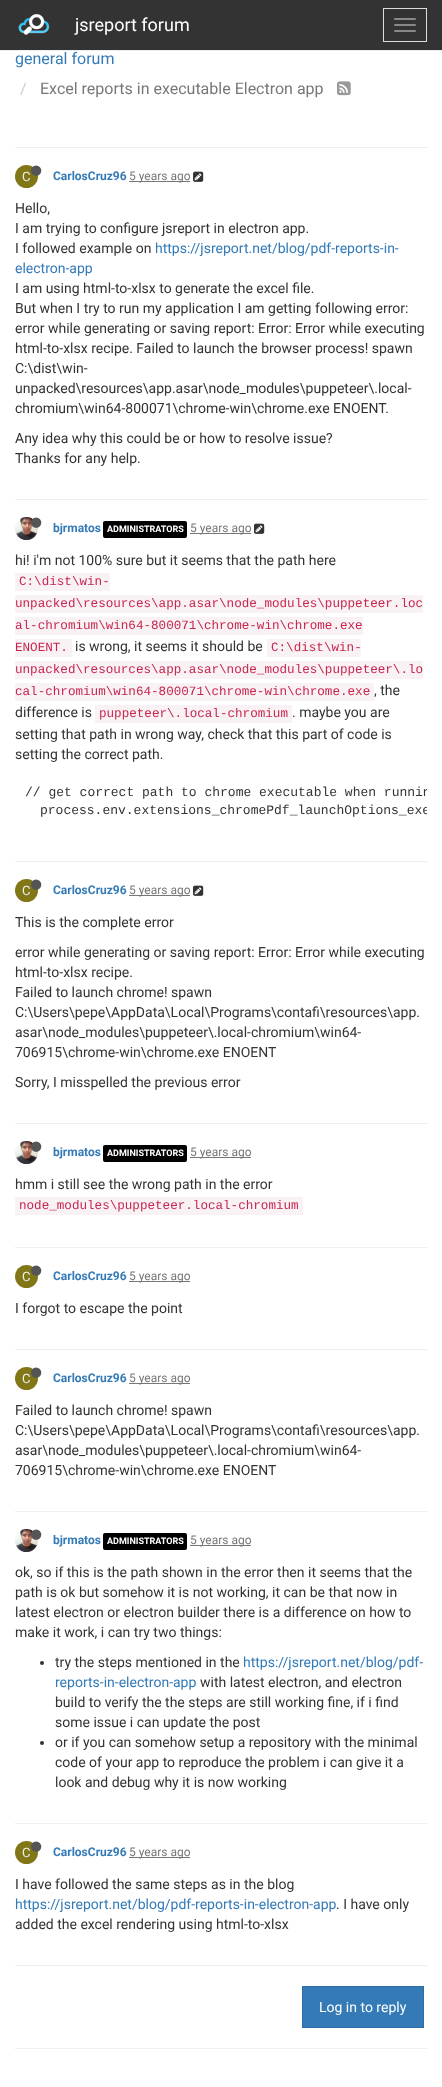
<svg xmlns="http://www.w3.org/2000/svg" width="442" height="2087">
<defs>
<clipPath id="clip1"><rect x="15" y="774" width="412" height="56"/></clipPath>
</defs>
<rect width="100%" height="100%" fill="#fff"/>
<rect width="442" height="50" fill="#333"/>
<rect y="50" width="442" height="1" fill="#eee"/>
<image x="18" y="14" width="32" height="21" href="media/1.png"/>
<text x="75" y="31" style="font-family:Roboto;font-size:18px;fill:#fff">jsreport forum</text>
<rect x="383.5" y="8.5" width="43" height="33" fill="none" stroke="#ddd"/>
<rect x="394" y="18" width="22" height="2" rx="1" fill="#888"/>
<rect x="394" y="24" width="22" height="2" rx="1" fill="#888"/>
<rect x="394" y="30" width="22" height="2" rx="1" fill="#888"/>
<text x="15" y="64" style="font-family:Roboto;font-size:16px;fill:#337ab7">general forum</text>
<text x="20" y="94" style="font-family:Roboto;font-size:16px;fill:#ccc">/</text>
<text x="40" y="94" style="font-family:Roboto;font-size:16px;fill:#777">Excel reports in executable Electron app</text>
<image x="337" y="81" width="14" height="15" href="media/2.png"/>
<rect x="15" y="147" width="412" height="1" fill="#eee"/>
<circle cx="26.5" cy="176.5" r="11.5" fill="#827717"/>
<text x="22" y="181" style="font-family:Roboto;font-size:13px;fill:#eee">C</text>
<image x="31" y="165" width="11" height="11" href="media/3.png"/>
<text x="53" y="180" style="font-family:Roboto;font-size:12px;font-weight:bold;fill:#337ab7">CarlosCruz96</text>
<rect x="129" y="181" width="61" height="1" fill="#777"/>
<text x="129" y="180" style="font-family:Roboto;font-size:12px;fill:#777">5 years ago</text>
<image x="193" y="171" width="11" height="11" href="media/4.png"/>
<text x="15" y="213" style="font-family:Roboto;font-size:14px;fill:#333">Hello,</text>
<text x="15" y="233" style="font-family:Roboto;font-size:14px;fill:#333">I am trying to configure jsreport in electron app.</text>
<text x="15" y="253" style="font-family:Roboto;font-size:14px;fill:#333">I followed example on</text>
<text x="155" y="253" style="font-family:Roboto;font-size:14px;fill:#337ab7">https://jsreport.net/blog/pdf-reports-in-</text>
<text x="15" y="273" style="font-family:Roboto;font-size:14px;fill:#337ab7">electron-app</text>
<text x="15" y="293" style="font-family:Roboto;font-size:14px;fill:#333">I am using html-to-xlsx to generate the excel file.</text>
<text x="15" y="313" style="font-family:Roboto;font-size:14px;fill:#333">But when I try to run my application I am getting following error:</text>
<text x="15" y="333" style="font-family:Roboto;font-size:14px;fill:#333">error while generating or saving report: Error: Error while executing</text>
<text x="15" y="353" style="font-family:Roboto;font-size:14px;fill:#333">html-to-xlsx recipe. Failed to launch the browser process! spawn</text>
<text x="15" y="373" style="font-family:Roboto;font-size:14px;fill:#333">C:\dist\win-</text>
<text x="15" y="393" style="font-family:Roboto;font-size:14px;fill:#333">unpacked\resources\app.asar\node_modules\puppeteer\.local-</text>
<text x="15" y="413" style="font-family:Roboto;font-size:14px;fill:#333">chromium\win64-800071\chrome-win\chrome.exe ENOENT.</text>
<text x="15" y="443" style="font-family:Roboto;font-size:14px;fill:#333">Any idea why this could be or how to resolve issue?</text>
<text x="15" y="463" style="font-family:Roboto;font-size:14px;fill:#333">Thanks for any help.</text>
<rect x="15" y="499" width="412" height="1" fill="#eee"/>
<image x="15" y="517" width="23" height="23" href="media/5.png"/>
<image x="31" y="517" width="11" height="11" href="media/6.png"/>
<text x="53" y="532" style="font-family:Roboto;font-size:12px;font-weight:bold;fill:#337ab7">bjrmatos</text>
<rect x="103" y="521" width="84" height="17" rx="2" fill="#000"/>
<text x="107" y="532" style="font-family:Roboto;font-size:9px;font-weight:bold;fill:#fff">ADMINISTRATORS</text>
<rect x="190" y="533" width="61" height="1" fill="#777"/>
<text x="190" y="532" style="font-family:Roboto;font-size:12px;fill:#777">5 years ago</text>
<image x="254" y="523" width="11" height="11" href="media/4.png"/>
<text x="15" y="565" style="font-family:Roboto;font-size:14px;fill:#333">hi! i'm not 100% sure but it seems that the path here</text>
<rect x="15" y="573" width="95" height="18" fill="#f9f2f4"/>
<text x="19" y="585" style="font-family:Liberation Mono;font-size:12.6px;fill:#c7254e">C:\dist\win-</text>
<rect x="15" y="595" width="408" height="18" fill="#f9f2f4"/>
<text x="15" y="607" style="font-family:Liberation Mono;font-size:12.6px;fill:#c7254e">unpacked\resources\app.asar\node_modules\puppeteer.loc</text>
<rect x="15" y="617" width="348" height="18" fill="#f9f2f4"/>
<text x="15" y="629" style="font-family:Liberation Mono;font-size:12.6px;fill:#c7254e">al-chromium\win64-800071\chrome-win\chrome.exe</text>
<rect x="15" y="639" width="57" height="18" fill="#f9f2f4"/>
<text x="15" y="651" style="font-family:Liberation Mono;font-size:12.6px;fill:#c7254e">ENOENT.</text>
<text x="75" y="651" style="font-family:Roboto;font-size:14px;fill:#333">is wrong, it seems it should be</text>
<rect x="267" y="639" width="94" height="18" fill="#f9f2f4"/>
<text x="271" y="651" style="font-family:Liberation Mono;font-size:12.6px;fill:#c7254e">C:\dist\win-</text>
<rect x="15" y="661" width="408" height="18" fill="#f9f2f4"/>
<text x="15" y="673" style="font-family:Liberation Mono;font-size:12.6px;fill:#c7254e">unpacked\resources\app.asar\node_modules\puppeteer\.lo</text>
<rect x="15" y="683" width="359" height="18" fill="#f9f2f4"/>
<text x="15" y="695" style="font-family:Liberation Mono;font-size:12.6px;fill:#c7254e">cal-chromium\win64-800071\chrome-win\chrome.exe</text>
<text x="374" y="695" style="font-family:Roboto;font-size:14px;fill:#333">, the</text>
<text x="15" y="717" style="font-family:Roboto;font-size:14px;fill:#333">difference is</text>
<rect x="95" y="705" width="197" height="18" fill="#f9f2f4"/>
<text x="99" y="717" style="font-family:Liberation Mono;font-size:12.6px;fill:#c7254e">puppeteer\.local-chromium</text>
<text x="292" y="717" style="font-family:Roboto;font-size:14px;fill:#333">. maybe you are</text>
<text x="15" y="739" style="font-family:Roboto;font-size:14px;fill:#333">setting that path in wrong way, check that this part of code is</text>
<text x="15" y="759" style="font-family:Roboto;font-size:14px;fill:#333">setting the correct path.</text>
<g clip-path="url(#clip1)">
<text x="25" y="796" style="font-family:Liberation Mono;font-size:13px;fill:#333">// get correct path to chrome executable when runnin</text>
<text x="40" y="814" style="font-family:Liberation Mono;font-size:13px;fill:#333">process.env.extensions_chromePdf_launchOptions_exe</text>
</g>
<rect x="15" y="861" width="412" height="1" fill="#eee"/>
<circle cx="26.5" cy="890.5" r="11.5" fill="#827717"/>
<text x="22" y="895" style="font-family:Roboto;font-size:13px;fill:#eee">C</text>
<image x="31" y="879" width="11" height="11" href="media/3.png"/>
<text x="53" y="894" style="font-family:Roboto;font-size:12px;font-weight:bold;fill:#337ab7">CarlosCruz96</text>
<rect x="129" y="895" width="61" height="1" fill="#777"/>
<text x="129" y="894" style="font-family:Roboto;font-size:12px;fill:#777">5 years ago</text>
<image x="193" y="885" width="11" height="11" href="media/4.png"/>
<text x="15" y="927" style="font-family:Roboto;font-size:14px;fill:#333">This is the complete error</text>
<text x="15" y="957" style="font-family:Roboto;font-size:14px;fill:#333">error while generating or saving report: Error: Error while executing</text>
<text x="15" y="977" style="font-family:Roboto;font-size:14px;fill:#333">html-to-xlsx recipe.</text>
<text x="15" y="997" style="font-family:Roboto;font-size:14px;fill:#333">Failed to launch chrome! spawn</text>
<text x="15" y="1017" style="font-family:Roboto;font-size:14px;fill:#333">C:\Users\pepe\AppData\Local\Programs\contafi\resources\app.</text>
<text x="15" y="1037" style="font-family:Roboto;font-size:14px;fill:#333">asar\node_modules\puppeteer\.local-chromium\win64-</text>
<text x="15" y="1057" style="font-family:Roboto;font-size:14px;fill:#333">706915\chrome-win\chrome.exe ENOENT</text>
<text x="15" y="1087" style="font-family:Roboto;font-size:14px;fill:#333">Sorry, I misspelled the previous error</text>
<rect x="15" y="1123" width="412" height="1" fill="#eee"/>
<image x="15" y="1141" width="23" height="23" href="media/5.png"/>
<image x="31" y="1141" width="11" height="11" href="media/6.png"/>
<text x="53" y="1156" style="font-family:Roboto;font-size:12px;font-weight:bold;fill:#337ab7">bjrmatos</text>
<rect x="103" y="1145" width="84" height="17" rx="2" fill="#000"/>
<text x="107" y="1156" style="font-family:Roboto;font-size:9px;font-weight:bold;fill:#fff">ADMINISTRATORS</text>
<rect x="190" y="1157" width="61" height="1" fill="#777"/>
<text x="190" y="1156" style="font-family:Roboto;font-size:12px;fill:#777">5 years ago</text>
<text x="15" y="1189" style="font-family:Roboto;font-size:14px;fill:#333">hmm i still see the wrong path in the error</text>
<rect x="15" y="1197" width="288" height="18" fill="#f9f2f4"/>
<text x="19" y="1209" style="font-family:Liberation Mono;font-size:12.6px;fill:#c7254e">node_modules\puppeteer.local-chromium</text>
<rect x="15" y="1247" width="412" height="1" fill="#eee"/>
<circle cx="26.5" cy="1276.5" r="11.5" fill="#827717"/>
<text x="22" y="1281" style="font-family:Roboto;font-size:13px;fill:#eee">C</text>
<image x="31" y="1265" width="11" height="11" href="media/3.png"/>
<text x="53" y="1280" style="font-family:Roboto;font-size:12px;font-weight:bold;fill:#337ab7">CarlosCruz96</text>
<rect x="129" y="1281" width="61" height="1" fill="#777"/>
<text x="129" y="1280" style="font-family:Roboto;font-size:12px;fill:#777">5 years ago</text>
<text x="15" y="1313" style="font-family:Roboto;font-size:14px;fill:#333">I forgot to escape the point</text>
<rect x="15" y="1349" width="412" height="1" fill="#eee"/>
<circle cx="26.5" cy="1378.5" r="11.5" fill="#827717"/>
<text x="22" y="1383" style="font-family:Roboto;font-size:13px;fill:#eee">C</text>
<image x="31" y="1367" width="11" height="11" href="media/3.png"/>
<text x="53" y="1382" style="font-family:Roboto;font-size:12px;font-weight:bold;fill:#337ab7">CarlosCruz96</text>
<rect x="129" y="1383" width="61" height="1" fill="#777"/>
<text x="129" y="1382" style="font-family:Roboto;font-size:12px;fill:#777">5 years ago</text>
<text x="15" y="1415" style="font-family:Roboto;font-size:14px;fill:#333">Failed to launch chrome! spawn</text>
<text x="15" y="1435" style="font-family:Roboto;font-size:14px;fill:#333">C:\Users\pepe\AppData\Local\Programs\contafi\resources\app.</text>
<text x="15" y="1455" style="font-family:Roboto;font-size:14px;fill:#333">asar\node_modules\puppeteer\.local-chromium\win64-</text>
<text x="15" y="1475" style="font-family:Roboto;font-size:14px;fill:#333">706915\chrome-win\chrome.exe ENOENT</text>
<rect x="15" y="1511" width="412" height="1" fill="#eee"/>
<image x="15" y="1529" width="23" height="23" href="media/5.png"/>
<image x="31" y="1529" width="11" height="11" href="media/6.png"/>
<text x="53" y="1544" style="font-family:Roboto;font-size:12px;font-weight:bold;fill:#337ab7">bjrmatos</text>
<rect x="103" y="1533" width="84" height="17" rx="2" fill="#000"/>
<text x="107" y="1544" style="font-family:Roboto;font-size:9px;font-weight:bold;fill:#fff">ADMINISTRATORS</text>
<rect x="190" y="1545" width="61" height="1" fill="#777"/>
<text x="190" y="1544" style="font-family:Roboto;font-size:12px;fill:#777">5 years ago</text>
<text x="15" y="1577" style="font-family:Roboto;font-size:14px;fill:#333">ok, so if this is the path shown in the error then it seems that the</text>
<text x="15" y="1597" style="font-family:Roboto;font-size:14px;fill:#333">path is ok but somehow it is not working, it can be that now in</text>
<text x="15" y="1617" style="font-family:Roboto;font-size:14px;fill:#333">latest electron or electron builder there is a difference on how to</text>
<text x="15" y="1637" style="font-family:Roboto;font-size:14px;fill:#333">make it work, i can try two things:</text>
<circle cx="42" cy="1663" r="2" fill="#333"/>
<text x="55" y="1667" style="font-family:Roboto;font-size:14px;fill:#333">try the steps mentioned in the</text>
<text x="243" y="1667" style="font-family:Roboto;font-size:14px;fill:#337ab7">https://jsreport.net/blog/pdf-</text>
<text x="55" y="1687" style="font-family:Roboto;font-size:14px;fill:#337ab7">reports-in-electron-app</text>
<text x="200" y="1687" style="font-family:Roboto;font-size:14px;fill:#333">with latest electron, and electron</text>
<text x="55" y="1707" style="font-family:Roboto;font-size:14px;fill:#333">build to verify the the steps are still working fine, if i find</text>
<text x="55" y="1727" style="font-family:Roboto;font-size:14px;fill:#333">some issue i can update the post</text>
<circle cx="42" cy="1743" r="2" fill="#333"/>
<text x="55" y="1747" style="font-family:Roboto;font-size:14px;fill:#333">or if you can somehow setup a repository with the minimal</text>
<text x="55" y="1767" style="font-family:Roboto;font-size:14px;fill:#333">code of your app to reproduce the problem i can give it a</text>
<text x="55" y="1787" style="font-family:Roboto;font-size:14px;fill:#333">look and debug why it is now working</text>
<rect x="15" y="1823" width="412" height="1" fill="#eee"/>
<circle cx="26.5" cy="1852.5" r="11.5" fill="#827717"/>
<text x="22" y="1857" style="font-family:Roboto;font-size:13px;fill:#eee">C</text>
<image x="31" y="1841" width="11" height="11" href="media/3.png"/>
<text x="53" y="1856" style="font-family:Roboto;font-size:12px;font-weight:bold;fill:#337ab7">CarlosCruz96</text>
<rect x="129" y="1857" width="61" height="1" fill="#777"/>
<text x="129" y="1856" style="font-family:Roboto;font-size:12px;fill:#777">5 years ago</text>
<text x="15" y="1889" style="font-family:Roboto;font-size:14px;fill:#333">I have followed the same steps as in the blog</text>
<text x="15" y="1909" style="font-family:Roboto;font-size:14px;fill:#337ab7">https://jsreport.net/blog/pdf-reports-in-electron-app</text>
<text x="336" y="1909" style="font-family:Roboto;font-size:14px;fill:#333">. I have only</text>
<text x="15" y="1929" style="font-family:Roboto;font-size:14px;fill:#333">added the excel rendering using html-to-xlsx</text>
<rect x="15" y="1965" width="412" height="1" fill="#eee"/>
<rect x="302.5" y="1986.5" width="121" height="41" fill="#337ab7" stroke="#2e6da4"/>
<text x="319" y="2012" style="font-family:Roboto;font-size:14px;fill:#fff">Log in to reply</text>
<rect x="15" y="2048" width="412" height="1" fill="#eee"/>
</svg>
